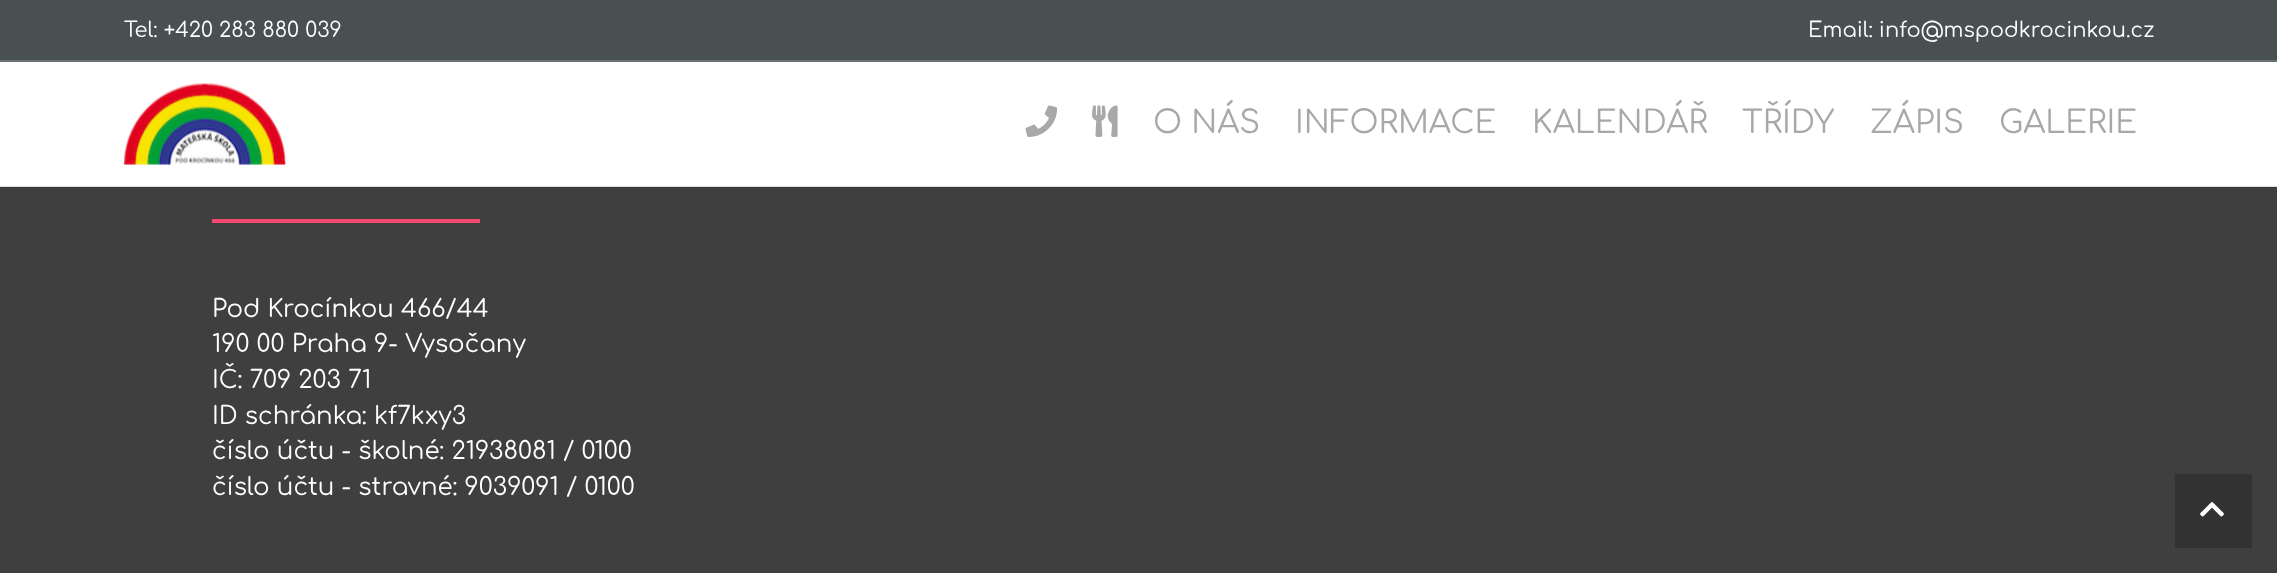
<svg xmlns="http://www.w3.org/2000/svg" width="2277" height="573">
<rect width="100%" height="100%" fill="#3f3f3f"/>
<rect width="2277" height="60" fill="#495052"/>
<rect y="60" width="2277" height="2" fill="#687275"/>
<text x="124" y="37" style="font-family:Comfortaa;font-size:21px;fill:#fff">Tel: +420 283 880 039</text>
<text x="1808" y="37" style="font-family:Comfortaa;font-size:21px;fill:#fff">Email: info@mspodkrocinkou.cz</text>
<rect y="62" width="2277" height="124" fill="#fff"/>
<rect y="186" width="2277" height="1" fill="#dfdfdf"/>
<image x="124" y="83" width="162" height="82" href="media/1.png"/>
<image x="1025" y="105" width="32" height="32" href="media/2.png"/>
<image x="1092" y="105" width="26" height="32" href="media/3.png"/>
<text x="1153" y="133" style="font-family:Comfortaa;font-size:31.5px;fill:#a8a8a8">O NÁS</text>
<text x="1295" y="133" style="font-family:Comfortaa;font-size:31.5px;fill:#a8a8a8">INFORMACE</text>
<text x="1532" y="133" style="font-family:Comfortaa;font-size:31.5px;fill:#a8a8a8">KALENDÁŘ</text>
<text x="1742" y="133" style="font-family:Comfortaa;font-size:31.5px;fill:#a8a8a8">TŘÍDY</text>
<text x="1870" y="133" style="font-family:Comfortaa;font-size:31.5px;fill:#a8a8a8">ZÁPIS</text>
<text x="1999" y="133" style="font-family:Comfortaa;font-size:31.5px;fill:#a8a8a8">GALERIE</text>
<rect y="187" width="2277" height="1" fill="#383838"/>
<rect x="212" y="219" width="268" height="4" fill="#f44971"/>
<text x="212" y="317" style="font-family:Comfortaa;font-size:24.5px;fill:#fff">Pod Krocínkou 466/44</text>
<text x="212" y="352" style="font-family:Comfortaa;font-size:24.5px;fill:#fff">190 00 Praha 9- Vysočany</text>
<text x="212" y="388" style="font-family:Comfortaa;font-size:24.5px;fill:#fff">IČ: 709 203 71</text>
<text x="212" y="424" style="font-family:Comfortaa;font-size:24.5px;fill:#fff">ID schránka: kf7kxy3</text>
<text x="212" y="459" style="font-family:Comfortaa;font-size:24.5px;fill:#fff">číslo účtu - školné: 21938081 / 0100</text>
<text x="212" y="495" style="font-family:Comfortaa;font-size:24.5px;fill:#fff">číslo účtu - stravné: 9039091 / 0100</text>
<rect x="2175" y="474" width="77" height="74" fill="#323232"/>
<image x="2200" y="502" width="24" height="15" href="media/4.png"/>
</svg>
